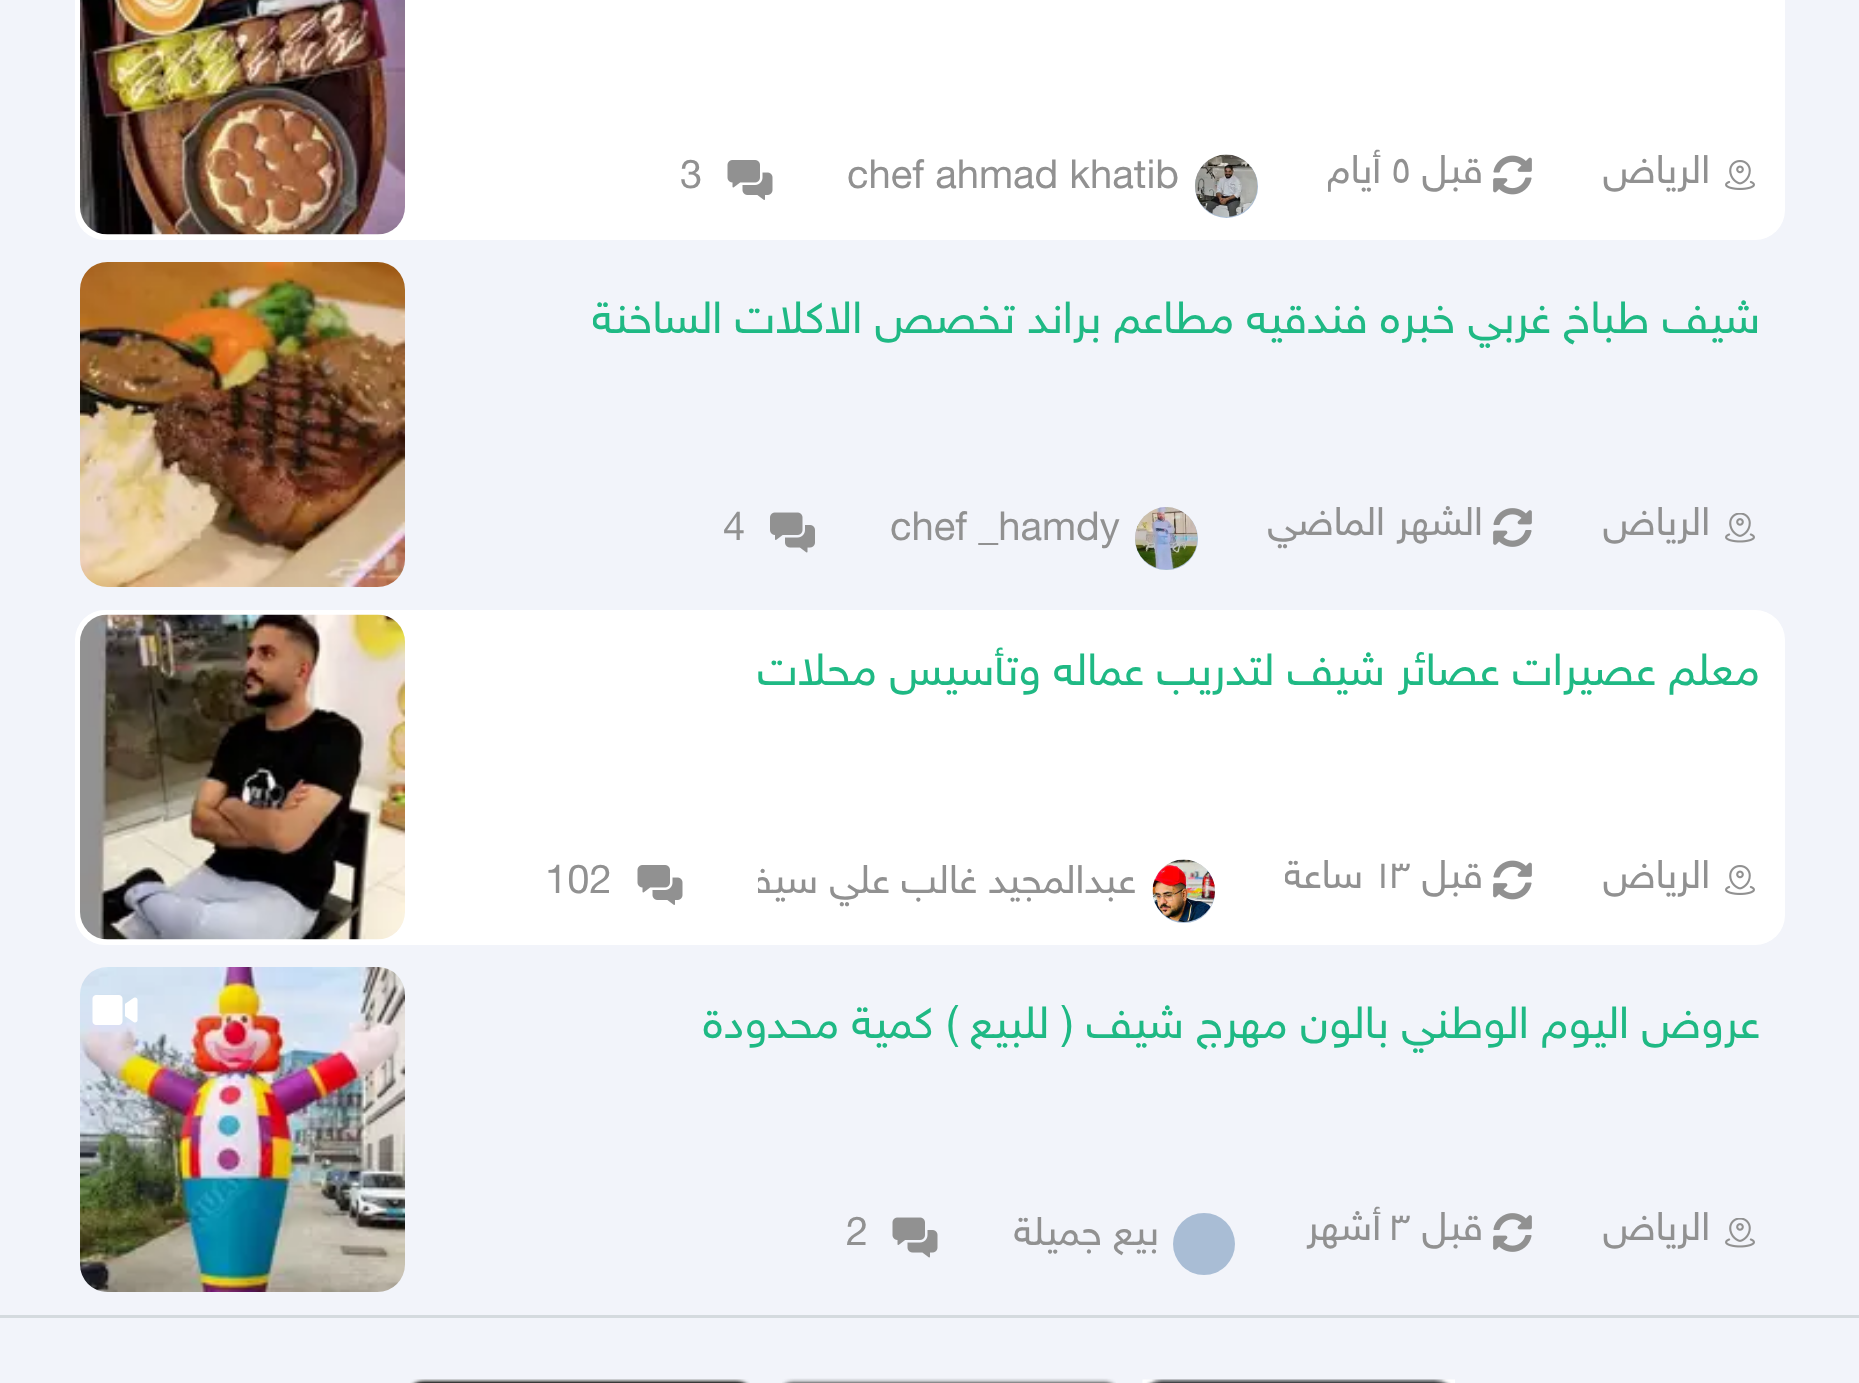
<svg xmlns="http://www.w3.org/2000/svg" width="1859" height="1383">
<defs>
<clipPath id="clip1"><rect x="1328" y="145" width="155" height="60"/></clipPath>
<clipPath id="clip2"><rect x="593" y="288" width="1167" height="70"/></clipPath>
<clipPath id="clip3"><rect x="1285" y="850" width="198" height="60"/></clipPath>
<clipPath id="clip4"><rect x="758" y="855" width="380" height="60"/></clipPath>
</defs>
<rect width="100%" height="100%" fill="#f2f4fa"/>
<rect x="75" y="-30" width="1710" height="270" rx="30" fill="#fff"/>
<image x="1725" y="160" width="30" height="30" href="media/1.png"/>
<text x="1710" y="183" style="font-family:'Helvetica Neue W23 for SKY';font-size:40px;direction:rtl;fill:#919191">الرياض</text>
<image x="1493" y="155" width="39" height="40" href="media/2.png"/>
<text x="1483" y="183" style="font-family:'Helvetica Neue W23 for SKY';font-size:40px;direction:rtl;fill:#919191">قبل</text>
<text x="1392" y="183" style="font-family:'Helvetica Neue W23 for SKY';font-size:40px;fill:#919191">٥</text>
<g clip-path="url(#clip1)">
<text x="1381" y="183" style="font-family:'Helvetica Neue W23 for SKY';font-size:40px;direction:rtl;fill:#919191">أيام</text>
</g>
<circle cx="1226.5" cy="186.5" r="31.5" fill="#a9bdd5"/>
<image x="1195" y="154" width="63" height="63" href="media/3.png"/>
<text x="847" y="188" style="font-family:'Helvetica Neue W23 for SKY';font-size:40px;fill:#919191">chef ahmad khatib</text>
<image x="727" y="160" width="46" height="40" href="media/4.png"/>
<text x="680" y="188" style="font-family:'Helvetica Neue W23 for SKY';font-size:40px;fill:#919191">3</text>
<image x="80" y="0" width="325" height="235" href="media/5.png"/>
<g clip-path="url(#clip2)">
<text x="1760" y="333" style="font-family:'Helvetica Neue W23 for SKY';font-size:45px;direction:rtl;fill:#1fb984">شيف طباخ غربي خبره فندقيه مطاعم براند تخصص الاكلات الساخنة</text>
</g>
<image x="1725" y="513" width="30" height="30" href="media/6.png"/>
<text x="1710" y="535" style="font-family:'Helvetica Neue W23 for SKY';font-size:40px;direction:rtl;fill:#919191">الرياض</text>
<image x="1493" y="508" width="39" height="39" href="media/7.png"/>
<text x="1483" y="535" style="font-family:'Helvetica Neue W23 for SKY';font-size:40px;direction:rtl;fill:#919191">الشهر الماضي</text>
<rect x="1135" y="508" width="63" height="62" rx="31" fill="#a9bdd5"/>
<image x="1135" y="507" width="63" height="62" href="media/8.png"/>
<text x="890" y="540" style="font-family:'Helvetica Neue W23 for SKY';font-size:40px;fill:#919191">chef _hamdy</text>
<image x="770" y="512" width="45" height="41" href="media/9.png"/>
<text x="723" y="540" style="font-family:'Helvetica Neue W23 for SKY';font-size:40px;fill:#919191">4</text>
<image x="80" y="262" width="325" height="325" href="media/10.png"/>
<rect x="75" y="610" width="1710" height="335" rx="30" fill="#fff"/>
<text x="1760" y="685" style="font-family:'Helvetica Neue W23 for SKY';font-size:45px;direction:rtl;fill:#1fb984">معلم عصيرات عصائر شيف لتدريب عماله وتأسيس محلات</text>
<image x="1725" y="865" width="30" height="30" href="media/1.png"/>
<text x="1710" y="888" style="font-family:'Helvetica Neue W23 for SKY';font-size:40px;direction:rtl;fill:#919191">الرياض</text>
<image x="1493" y="860" width="39" height="40" href="media/2.png"/>
<text x="1483" y="888" style="font-family:'Helvetica Neue W23 for SKY';font-size:40px;direction:rtl;fill:#919191">قبل</text>
<text x="1374" y="888" style="font-family:'Helvetica Neue W23 for SKY';font-size:40px;fill:#919191">١٣</text>
<g clip-path="url(#clip3)">
<text x="1363" y="888" style="font-family:'Helvetica Neue W23 for SKY';font-size:40px;direction:rtl;fill:#919191">ساعة</text>
</g>
<rect x="1153" y="860" width="62" height="63" rx="31" fill="#a9bdd5"/>
<image x="1152" y="859" width="63" height="63" href="media/11.png"/>
<g clip-path="url(#clip4)">
<text x="1136" y="893" style="font-family:'Helvetica Neue W23 for SKY';font-size:40px;direction:rtl;fill:#919191">عبدالمجيد غالب علي سيف</text>
</g>
<image x="637" y="865" width="46" height="40" href="media/4.png"/>
<text x="545" y="893" style="font-family:'Helvetica Neue W23 for SKY';font-size:40px;fill:#919191">102</text>
<image x="80" y="614" width="325" height="326" href="media/12.png"/>
<text x="1760" y="1038" style="font-family:'Helvetica Neue W23 for SKY';font-size:45px;direction:rtl;fill:#1fb984">عروض اليوم الوطني بالون مهرج شيف ( للبيع ) كمية محدودة</text>
<image x="1725" y="1218" width="30" height="30" href="media/6.png"/>
<text x="1710" y="1240" style="font-family:'Helvetica Neue W23 for SKY';font-size:40px;direction:rtl;fill:#919191">الرياض</text>
<image x="1493" y="1213" width="39" height="39" href="media/7.png"/>
<text x="1483" y="1240" style="font-family:'Helvetica Neue W23 for SKY';font-size:40px;direction:rtl;fill:#919191">قبل</text>
<text x="1392" y="1240" style="font-family:'Helvetica Neue W23 for SKY';font-size:40px;fill:#919191">٣</text>
<text x="1381" y="1240" style="font-family:'Helvetica Neue W23 for SKY';font-size:40px;direction:rtl;fill:#919191">أشهر</text>
<circle cx="1204" cy="1244" r="31" fill="#a9bdd5"/>
<text x="1159" y="1245" style="font-family:'Helvetica Neue W23 for SKY';font-size:40px;direction:rtl;fill:#919191">بيع جميلة</text>
<image x="892" y="1217" width="46" height="41" href="media/13.png"/>
<text x="846" y="1245" style="font-family:'Helvetica Neue W23 for SKY';font-size:40px;fill:#919191">2</text>
<image x="80" y="967" width="325" height="325" href="media/14.png"/>
<image x="92" y="995" width="46" height="30" href="media/15.png"/>
<rect y="1315" width="1859" height="3" fill="#d4dade"/>
<image x="1142" y="1379" width="313" height="4" href="media/16.png"/>
<image x="782" y="1378" width="334" height="5" href="media/17.png"/>
<image x="410" y="1379" width="340" height="4" href="media/18.png"/>
</svg>
